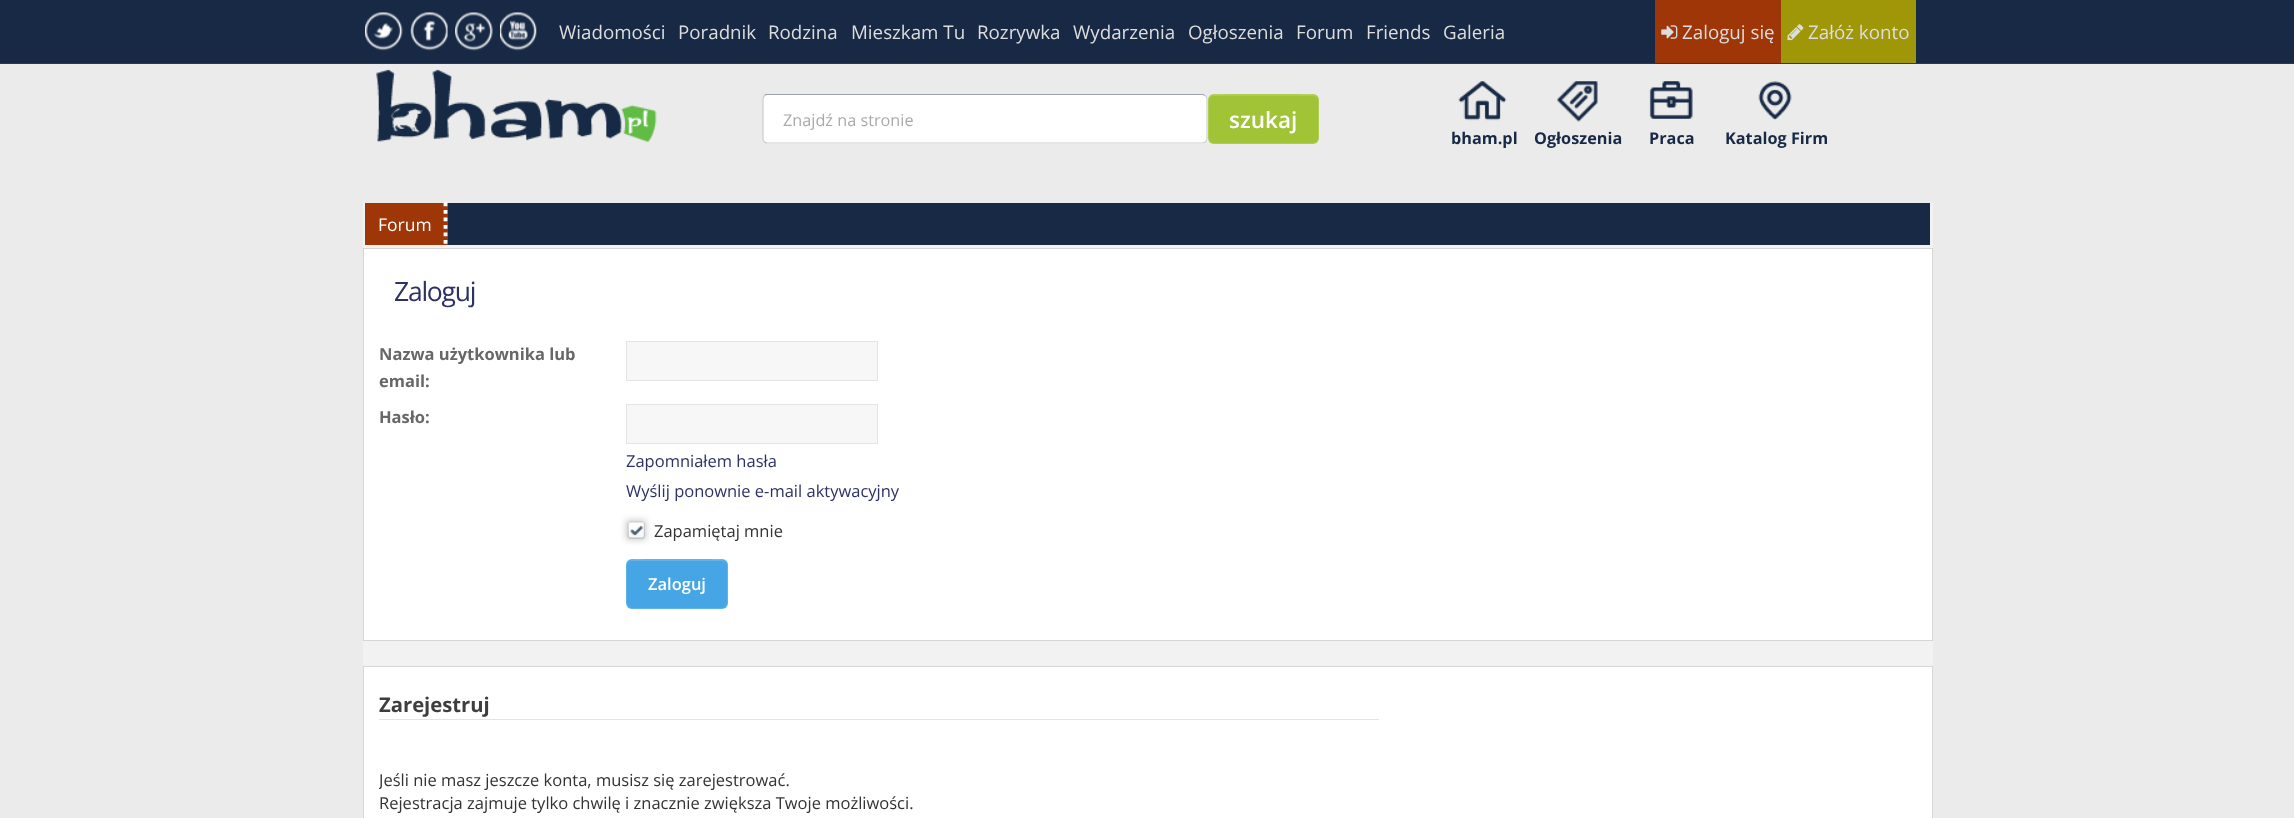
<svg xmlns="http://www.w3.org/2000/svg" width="2294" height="818">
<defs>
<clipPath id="clip1"><rect x="379" y="683" width="1000" height="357"/></clipPath>
</defs>
<rect width="100%" height="100%" fill="#ebebeb"/>
<rect width="2294" height="63" fill="#182945"/>
<image x="365" y="12" width="38" height="39" href="media/1.png"/>
<image x="410" y="12" width="38" height="39" href="media/2.png"/>
<image x="455" y="12" width="38" height="39" href="media/3.png"/>
<image x="500" y="12" width="37" height="39" href="media/4.png"/>
<text x="559" y="39" style="font-family:Open Sans;font-size:18.75px;fill:#ddd">Wiadomości</text>
<text x="678" y="39" style="font-family:Open Sans;font-size:18.75px;fill:#ddd">Poradnik</text>
<text x="768" y="39" style="font-family:Open Sans;font-size:18.75px;fill:#ddd">Rodzina</text>
<text x="851" y="39" style="font-family:Open Sans;font-size:18.75px;fill:#ddd">Mieszkam Tu</text>
<text x="977" y="39" style="font-family:Open Sans;font-size:18.75px;fill:#ddd">Rozrywka</text>
<text x="1073" y="39" style="font-family:Open Sans;font-size:18.75px;fill:#ddd">Wydarzenia</text>
<text x="1188" y="39" style="font-family:Open Sans;font-size:18.75px;fill:#ddd">Ogłoszenia</text>
<text x="1296" y="39" style="font-family:Open Sans;font-size:18.75px;fill:#ddd">Forum</text>
<text x="1366" y="39" style="font-family:Open Sans;font-size:18.75px;fill:#ddd">Friends</text>
<text x="1443" y="39" style="font-family:Open Sans;font-size:18.75px;fill:#ddd">Galeria</text>
<rect x="1655" width="126" height="63" fill="#9f3608"/>
<image x="1661" y="25" width="17" height="14" href="media/5.png"/>
<text x="1682" y="39" style="font-family:Open Sans;font-size:18.75px;fill:#ddd">Zaloguj się</text>
<rect x="1781" width="135" height="63" fill="#9f9608"/>
<image x="1787" y="24" width="17" height="17" href="media/6.png"/>
<text x="1808" y="39" style="font-family:Open Sans;font-size:18.75px;fill:#ddd">Załóż konto</text>
<rect y="63" width="2294" height="1" fill="#2d3264"/>
<image x="376" y="69" width="281" height="74" href="media/7.png"/>
<rect x="763" y="94" width="445" height="50" rx="5" fill="#fff"/>
<path d="M764.5 95.5l1.5-1h364h72.5l3 1" fill="none" stroke="#9da2ad" stroke-width="1.2"/>
<path d="M1205.5 95.5c1 1 1.5 2 1.5 3.5v40c0 1-.5 2-1.5 3c-.5 .5-2 1-3 1h-435c-1 0-2.5-.5-3-1c-1-1-1.5-2-1.5-3v-40c0-1.5 .5-2.5 1.5-3.5" fill="none" stroke="#cbcdcf" stroke-width="1.2"/>
<text x="783" y="126" style="font-family:Open Sans;font-size:16.25px;fill:#aaa">Znajdź na stronie</text>
<rect x="1208" y="94" width="111" height="50" rx="6" fill="#a1c436"/>
<path d="M1214 96h98c3 0 6 2 6 5c0-10-16-6-22-6h-66c-5 0-21-4-21 6c0-3 2-5 5-5z" fill="#afcd54"/>
<rect x="1208.5" y="94.5" width="110" height="49" rx="5.5" fill="none" stroke="#ffffff26"/>
<text x="1229" y="128" style="font-family:Open Sans;font-size:22.5px;font-weight:600;fill:#fff">szukaj</text>
<image x="1458" y="81" width="49" height="40" href="media/8.png"/>
<text x="1451" y="144" style="font-family:Open Sans;font-size:16.25px;font-weight:bold;fill:#182945">bham.pl</text>
<image x="1557" y="81" width="41" height="41" href="media/9.png"/>
<text x="1534" y="144" style="font-family:Open Sans;font-size:16.25px;font-weight:bold;fill:#182945">Ogłoszenia</text>
<image x="1649" y="81" width="44" height="38" href="media/10.png"/>
<text x="1649" y="144" style="font-family:Open Sans;font-size:16.25px;font-weight:bold;fill:#182945">Praca</text>
<image x="1758" y="81" width="34" height="39" href="media/11.png"/>
<text x="1725" y="144" style="font-family:Open Sans;font-size:16.25px;font-weight:bold;fill:#182945">Katalog Firm</text>
<rect x="363" y="203" width="1570" height="463" fill="#f2f2f2"/>
<rect x="448" y="203" width="1482" height="42" fill="#182945"/>
<rect x="365" y="203" width="83" height="42" fill="#9f3608"/>
<path d="M445.5 202.5v42.5" fill="none" stroke="#fff" stroke-width="3.8" stroke-dasharray="3.75 3.75"/>
<text x="378" y="231" style="font-family:Open Sans;font-size:17.5px;fill:#fff">Forum</text>
<rect x="363.5" y="248.5" width="1569" height="392" fill="#fff" stroke="#d6d6d6"/>
<text x="394" y="301" style="font-family:Open Sans;font-size:26.5px;letter-spacing:-1.25px;fill:#2d3264">Zaloguj</text>
<text x="379" y="360" style="font-family:Open Sans;font-size:16.5px;font-weight:bold;fill:#676767">Nazwa użytkownika lub</text>
<text x="379" y="387" style="font-family:Open Sans;font-size:16.5px;font-weight:bold;fill:#676767">email:</text>
<rect x="626.5" y="341.5" width="251" height="39" fill="#f7f7f7" stroke="#e4e4e4"/>
<text x="379" y="423" style="font-family:Open Sans;font-size:16.5px;font-weight:bold;fill:#676767">Hasło:</text>
<rect x="626.5" y="404.5" width="251" height="39" fill="#f7f7f7" stroke="#e4e4e4"/>
<text x="626" y="467" style="font-family:Open Sans;font-size:16.5px;fill:#2d3264">Zapomniałem hasła</text>
<text x="626" y="497" style="font-family:Open Sans;font-size:16.5px;fill:#2d3264">Wyślij ponownie e-mail aktywacyjny</text>
<rect x="626" y="520" width="20" height="20" fill="#ccc" filter="blur(3px)"/>
<image x="627" y="521" width="18" height="18" href="media/12.png"/>
<text x="654" y="537" style="font-family:Open Sans;font-size:16.5px;fill:#333">Zapamiętaj mnie</text>
<rect x="626" y="559" width="102" height="50" rx="6" fill="#46a5e5"/>
<path d="M632 561h89c3 0 5 2 5 5c0-10-14-6-20-6h-58c-6 0-20-4-20 6c0-3 2-5 4-5z" fill="#62b3e9"/>
<rect x="626.5" y="559.5" width="101" height="49" rx="5.5" fill="none" stroke="#ffffff26"/>
<text x="648" y="590" style="font-family:Open Sans;font-size:16.5px;font-weight:600;fill:#fff">Zaloguj</text>
<rect x="363.5" y="666.5" width="1569" height="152" fill="#fff" stroke="#d6d6d6"/>
<rect x="379" y="719" width="1000" height="1" fill="#e4e4e4"/>
<text x="379" y="712" style="font-family:Open Sans;font-size:20.25px;font-weight:bold;fill:#3e3e3e">Zarejestruj</text>
<g clip-path="url(#clip1)">
<text x="379" y="786" style="font-family:Open Sans;font-size:16.5px;fill:#333">Jeśli nie masz jeszcze konta, musisz się zarejestrować.</text>
</g>
<text x="379" y="809" style="font-family:Open Sans;font-size:16.5px;fill:#333">Rejestracja zajmuje tylko chwilę i znacznie zwiększa Twoje możliwości.</text>
</svg>
